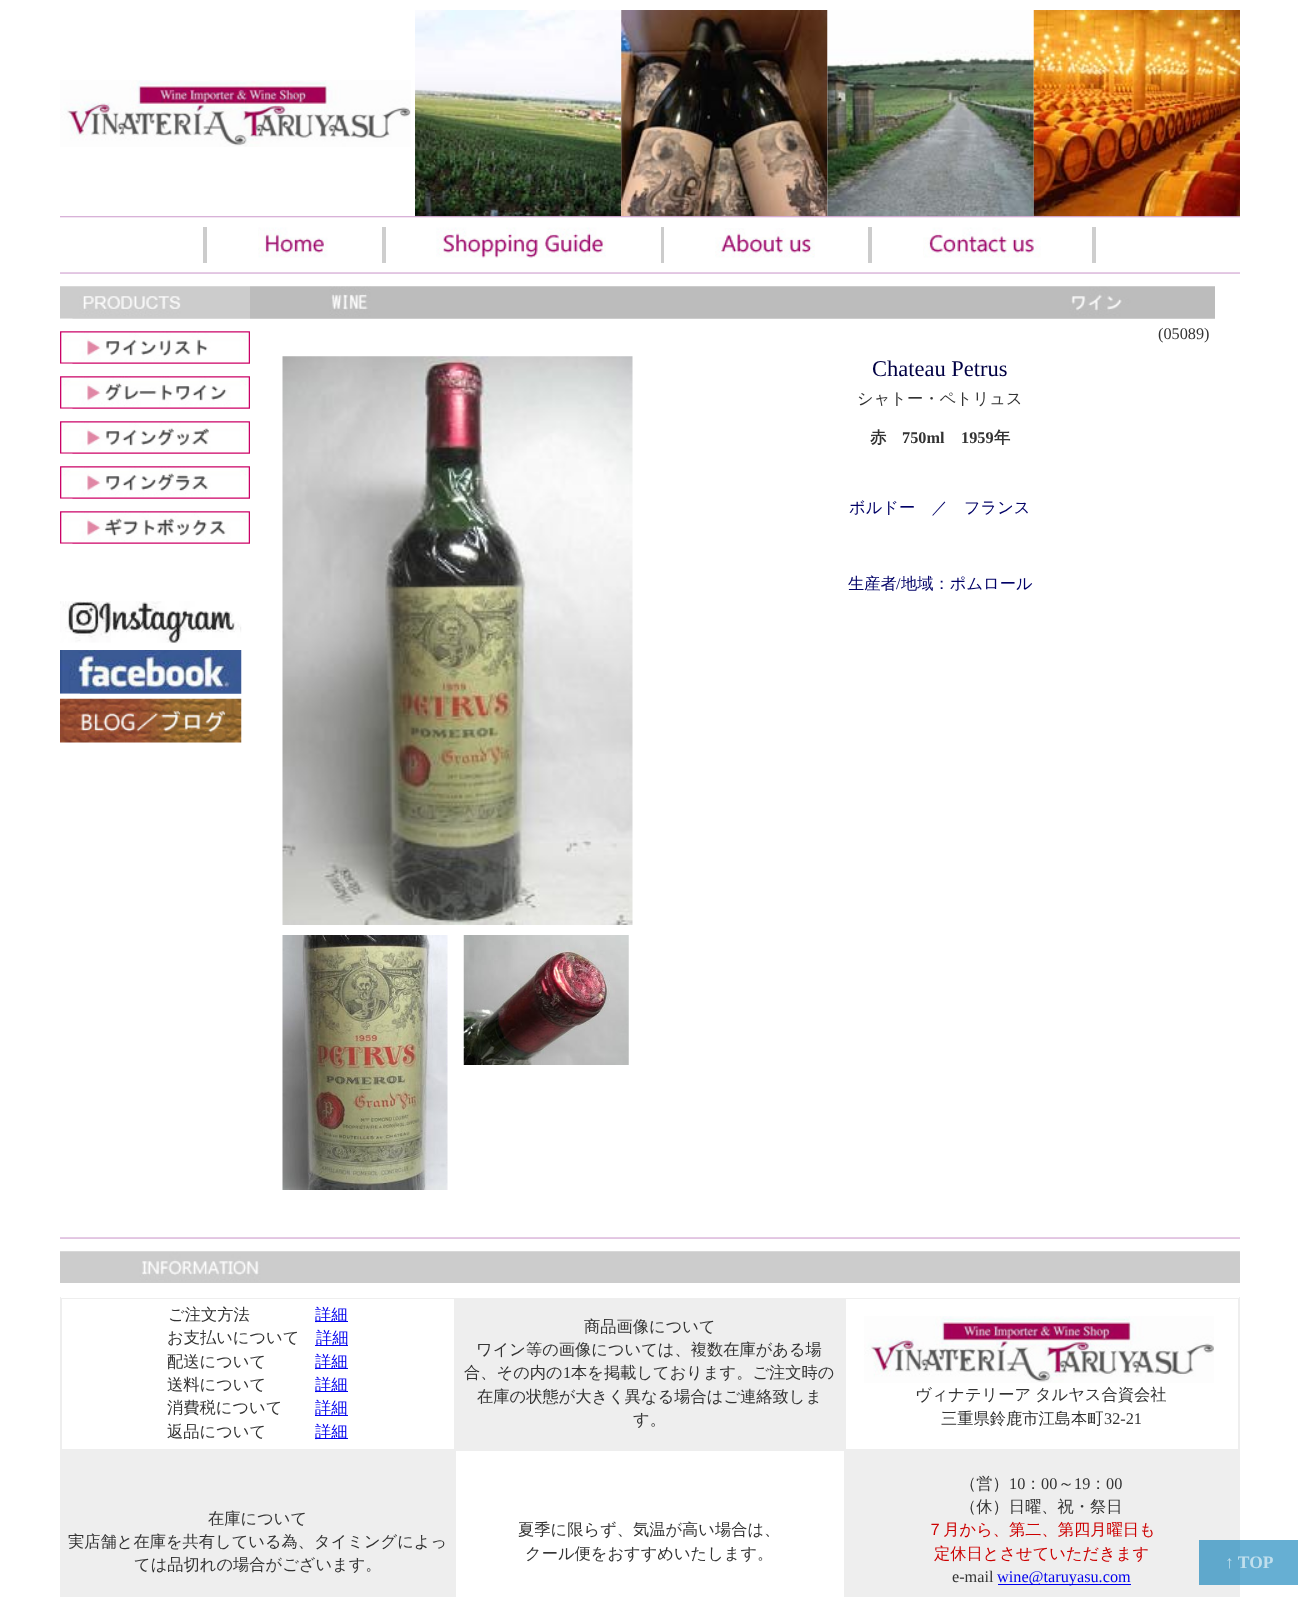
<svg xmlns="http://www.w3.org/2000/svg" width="1298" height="1597">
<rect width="100%" height="100%" fill="#fff"/>
<image x="60" y="80" width="351" height="67" href="media/1.png"/>
<image x="415" y="10" width="207" height="207" href="media/2.png"/>
<image x="621" y="10" width="207" height="207" href="media/3.png"/>
<image x="827" y="10" width="207" height="207" href="media/4.png"/>
<image x="1033" y="10" width="207" height="207" href="media/5.png"/>
<image x="60" y="216" width="1180" height="1" href="media/6.png"/>
<rect x="60" y="217" width="1180" height="1" fill="#f2e5f2"/>
<rect x="203" y="227" width="4" height="36" fill="#ccc"/>
<image x="258" y="227" width="70" height="31" href="media/7.png"/>
<rect x="382" y="227" width="4" height="36" fill="#cecece"/>
<image x="436" y="227" width="170" height="31" href="media/8.png"/>
<rect x="661" y="227" width="3" height="36" fill="#ccc"/>
<image x="715" y="228" width="100" height="30" href="media/9.png"/>
<rect x="868" y="227" width="4" height="36" fill="#ccc"/>
<image x="923" y="227" width="118" height="31" href="media/10.png"/>
<rect x="1092" y="227" width="4" height="36" fill="#cecece"/>
<image x="60" y="272" width="1180" height="1" href="media/11.png"/>
<rect x="60" y="273" width="1180" height="1" fill="#e2c5e2"/>
<image x="60" y="286" width="190" height="33" href="media/12.png"/>
<image x="60" y="318" width="13" height="1" href="media/13.png"/>
<image x="60" y="331" width="190" height="33" href="media/14.png"/>
<image x="60" y="363" width="13" height="1" href="media/15.png"/>
<image x="60" y="376" width="190" height="33" href="media/16.png"/>
<image x="60" y="408" width="13" height="1" href="media/15.png"/>
<image x="60" y="421" width="190" height="33" href="media/17.png"/>
<image x="60" y="453" width="13" height="1" href="media/15.png"/>
<image x="60" y="466" width="190" height="33" href="media/18.png"/>
<image x="60" y="498" width="13" height="1" href="media/15.png"/>
<image x="60" y="511" width="190" height="33" href="media/19.png"/>
<image x="60" y="543" width="13" height="1" href="media/15.png"/>
<image x="60" y="601" width="182" height="42" href="media/20.png"/>
<image x="60" y="650" width="182" height="44" href="media/21.png"/>
<rect x="60" y="693" width="20" height="1" fill="#ffffff40"/>
<image x="60" y="698" width="182" height="45" href="media/22.png"/>
<image x="250" y="286" width="965" height="33" href="media/23.png"/>
<image x="282" y="356" width="351" height="569" href="media/24.png"/>
<image x="282" y="935" width="166" height="255" href="media/25.png"/>
<image x="463" y="935" width="166" height="130" href="media/26.png"/>
<text x="1158" y="339" style="font-family:Liberation Serif;font-size:16.25px;fill:#333">(05089)</text>
<text x="872" y="376" style="font-family:Liberation Serif;font-size:22.5px;fill:#004">Chateau Petrus</text>
<text x="857" y="404" style="font-family:WenQuanYi Zen Hei;font-size:16.25px;font-weight:500;fill:#333">シャトー・ペトリュス</text>
<text x="870" y="443" style="font-family:WenQuanYi Zen Hei;font-size:16.25px;font-weight:bold;fill:#333">赤</text>
<text x="902" y="443" style="font-family:Liberation Serif;font-size:16.25px;font-weight:bold;fill:#333">750ml</text>
<text x="961" y="443" style="font-family:Liberation Serif;font-size:16.25px;font-weight:bold;fill:#333">1959</text>
<text x="994" y="443" style="font-family:WenQuanYi Zen Hei;font-size:16.25px;font-weight:bold;fill:#333">年</text>
<text x="849" y="513" style="font-family:WenQuanYi Zen Hei;font-size:16.25px;font-weight:500;fill:#006">ボルドー　／　フランス</text>
<text x="848" y="589" style="font-family:WenQuanYi Zen Hei;font-size:16.25px;font-weight:500;fill:#006">生産者</text>
<text x="896" y="589" style="font-family:Liberation Serif;font-size:16.25px;fill:#006">/</text>
<text x="901" y="589" style="font-family:WenQuanYi Zen Hei;font-size:16.25px;font-weight:500;fill:#006">地域：ポムロール</text>
<image x="60" y="1237" width="1180" height="1" href="media/11.png"/>
<rect x="60" y="1238" width="1180" height="1" fill="#e2c5e2"/>
<image x="60" y="1251" width="1180" height="32" href="media/27.png"/>
<rect x="60.5" y="1296.5" width="1179" height="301" fill="none" stroke="#eee"/>
<rect x="60" y="1296" width="1180" height="1" fill="#fff"/>
<rect x="61.5" y="1298.5" width="393" height="151" fill="none" stroke="#eee"/>
<text x="168" y="1320" style="font-family:WenQuanYi Zen Hei;font-size:16.25px;font-weight:500;fill:#333">ご注文方法</text>
<rect x="315" y="1321" width="33" height="1" fill="#00e"/>
<text x="315" y="1320" style="font-family:WenQuanYi Zen Hei;font-size:16.25px;font-weight:500;fill:#00e">詳細</text>
<text x="167" y="1343" style="font-family:WenQuanYi Zen Hei;font-size:16.25px;font-weight:500;fill:#333">お支払いについて</text>
<rect x="315" y="1345" width="33" height="1" fill="#00e"/>
<text x="316" y="1343" style="font-family:WenQuanYi Zen Hei;font-size:16.25px;font-weight:500;fill:#00e">詳細</text>
<text x="167" y="1367" style="font-family:WenQuanYi Zen Hei;font-size:16.25px;font-weight:500;fill:#333">配送について</text>
<rect x="315" y="1368" width="33" height="1" fill="#00e"/>
<text x="315" y="1367" style="font-family:WenQuanYi Zen Hei;font-size:16.25px;font-weight:500;fill:#00e">詳細</text>
<text x="167" y="1390" style="font-family:WenQuanYi Zen Hei;font-size:16.25px;font-weight:500;fill:#333">送料について</text>
<rect x="315" y="1391" width="33" height="1" fill="#00e"/>
<text x="315" y="1390" style="font-family:WenQuanYi Zen Hei;font-size:16.25px;font-weight:500;fill:#00e">詳細</text>
<text x="167" y="1413" style="font-family:WenQuanYi Zen Hei;font-size:16.25px;font-weight:500;fill:#333">消費税について</text>
<rect x="315" y="1415" width="33" height="1" fill="#00e"/>
<text x="315" y="1413" style="font-family:WenQuanYi Zen Hei;font-size:16.25px;font-weight:500;fill:#00e">詳細</text>
<text x="167" y="1437" style="font-family:WenQuanYi Zen Hei;font-size:16.25px;font-weight:500;fill:#333">返品について</text>
<rect x="315" y="1438" width="33" height="1" fill="#00e"/>
<text x="315" y="1437" style="font-family:WenQuanYi Zen Hei;font-size:16.25px;font-weight:500;fill:#00e">詳細</text>
<rect x="455" y="1298" width="390" height="152" fill="#eee"/>
<text x="584" y="1332" style="font-family:WenQuanYi Zen Hei;font-size:16.25px;font-weight:500;fill:#333">商品画像について</text>
<text x="476" y="1355" style="font-family:WenQuanYi Zen Hei;font-size:16.25px;font-weight:500;fill:#333">ワイン等の画像については、複数在庫がある場</text>
<text x="464" y="1378" style="font-family:WenQuanYi Zen Hei;font-size:16.25px;font-weight:500;fill:#333">合、その内の</text>
<text x="563" y="1378" style="font-family:Liberation Serif;font-size:16.25px;fill:#333">1</text>
<text x="571" y="1378" style="font-family:WenQuanYi Zen Hei;font-size:16.25px;font-weight:500;fill:#333">本を掲載しております。ご注文時の</text>
<text x="477" y="1402" style="font-family:WenQuanYi Zen Hei;font-size:16.25px;font-weight:500;fill:#333">在庫の状態が大きく異なる場合はご連絡致しま</text>
<text x="633" y="1425" style="font-family:WenQuanYi Zen Hei;font-size:16.25px;font-weight:500;fill:#333">す。</text>
<rect x="845.5" y="1298.5" width="393" height="151" fill="none" stroke="#eee"/>
<image x="864" y="1316" width="350" height="67" href="media/28.png"/>
<text x="915" y="1400" word-spacing="-1" style="font-family:WenQuanYi Zen Hei;font-size:16.25px;font-weight:500;fill:#333">ヴィナテリーア タルヤス合資会社</text>
<text x="941" y="1424" style="font-family:WenQuanYi Zen Hei;font-size:16.25px;font-weight:500;fill:#333">三重県鈴鹿市江島本町</text>
<text x="1104" y="1424" style="font-family:Liberation Serif;font-size:16.25px;fill:#333">32-21</text>
<rect x="61" y="1450" width="394" height="147" fill="#eee"/>
<text x="208" y="1524" style="font-family:WenQuanYi Zen Hei;font-size:16.25px;font-weight:500;fill:#333">在庫について</text>
<text x="68" y="1547" style="font-family:WenQuanYi Zen Hei;font-size:16.25px;font-weight:500;fill:#333">実店舗と在庫を共有している為、タイミングによっ</text>
<text x="134" y="1570" style="font-family:WenQuanYi Zen Hei;font-size:16.25px;font-weight:500;fill:#333">ては品切れの場合がございます。</text>
<rect x="455.5" y="1450.5" width="389" height="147" fill="none" stroke="#eee"/>
<text x="518" y="1535" style="font-family:WenQuanYi Zen Hei;font-size:16.25px;font-weight:500;fill:#333">夏季に限らず、気温が高い場合は、</text>
<text x="525" y="1559" style="font-family:WenQuanYi Zen Hei;font-size:16.25px;font-weight:500;fill:#333">クール便をおすすめいたします。</text>
<rect x="845" y="1450" width="394" height="147" fill="#eee"/>
<text x="960" y="1489" style="font-family:WenQuanYi Zen Hei;font-size:16.25px;font-weight:500;fill:#333">（営）</text>
<text x="1009" y="1489" style="font-family:Liberation Serif;font-size:16.25px;fill:#333">10</text>
<text x="1025" y="1489" style="font-family:WenQuanYi Zen Hei;font-size:16.25px;font-weight:500;fill:#333">：</text>
<text x="1041" y="1489" style="font-family:Liberation Serif;font-size:16.25px;fill:#333">00</text>
<text x="1058" y="1489" style="font-family:WenQuanYi Zen Hei;font-size:16.25px;font-weight:500;fill:#333">～</text>
<text x="1074" y="1489" style="font-family:Liberation Serif;font-size:16.25px;fill:#333">19</text>
<text x="1090" y="1489" style="font-family:WenQuanYi Zen Hei;font-size:16.25px;font-weight:500;fill:#333">：</text>
<text x="1106" y="1489" style="font-family:Liberation Serif;font-size:16.25px;fill:#333">00</text>
<text x="960" y="1512" style="font-family:WenQuanYi Zen Hei;font-size:16.25px;font-weight:500;fill:#333">（休）日曜、祝・祭日</text>
<text x="927" y="1535" style="font-family:WenQuanYi Zen Hei;font-size:16.25px;font-weight:500;fill:#c00">７月から、第二、第四月曜日も</text>
<text x="934" y="1559" style="font-family:WenQuanYi Zen Hei;font-size:16.25px;font-weight:500;fill:#c00">定休日とさせていただきます</text>
<text x="952" y="1582" style="font-family:Liberation Serif;font-size:16.25px;fill:#333">e-mail</text>
<rect x="998" y="1584" width="133" height="1" fill="#00e"/>
<text x="997" y="1582" style="font-family:Liberation Serif;font-size:16.25px;fill:#00e">wine@taruyasu.com</text>
<rect x="1199" y="1540" width="99" height="45" fill="#007ab599"/>
<text x="1225" y="1568" style="font-family:Liberation Serif;font-size:17.5px;font-weight:bold;fill:#c1dfed">↑ TOP</text>
</svg>
